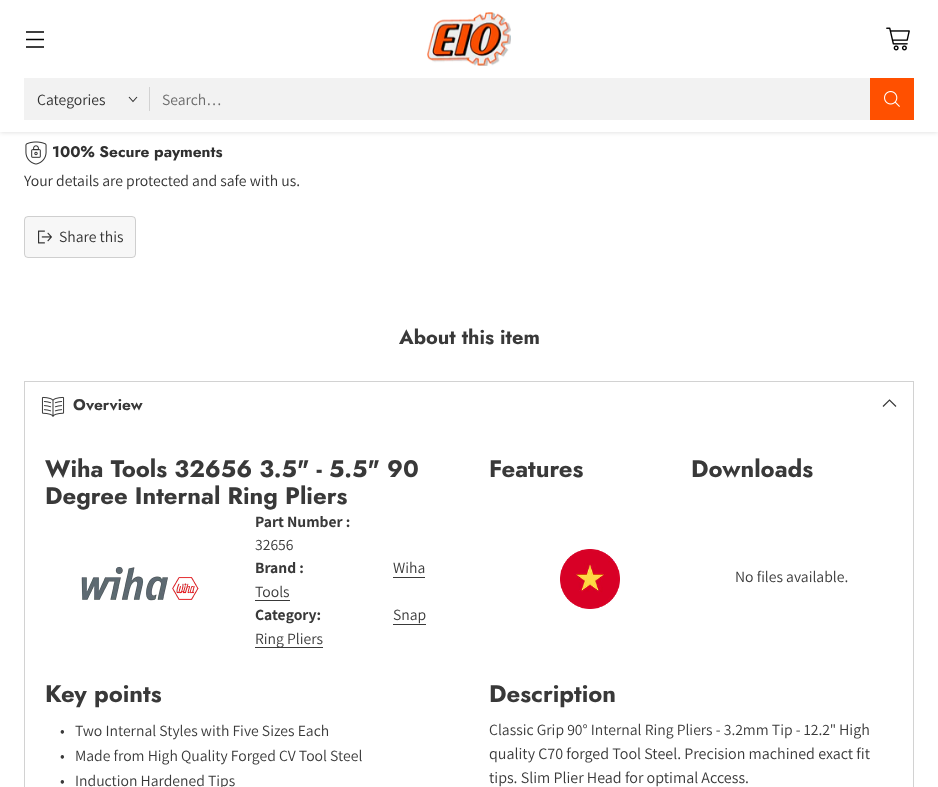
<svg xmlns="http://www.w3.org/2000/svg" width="938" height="787">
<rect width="100%" height="100%" fill="#fff"/>
<rect width="938" height="132" fill="#00000026" filter="blur(2.5px)"/>
<rect width="938" height="132" fill="#fff"/>
<path d="M26 39.5h18m-18-7.5h18m-18 15h18" fill="none" stroke="#000" stroke-width="1.3"/>
<image x="427" y="12" width="84" height="54" href="media/1.png"/>
<image x="886" y="27" width="24" height="24" href="media/2.png"/>
<rect x="24.5" y="78.5" width="889" height="41" fill="none" stroke="#f2f2f2"/>
<rect x="25" y="79" width="845" height="40" fill="#f2f2f2"/>
<text x="37" y="105" style="font-family:Assistant;font-size:15.65px;fill:#303030">Categories</text>
<path d="M129 97l4 4.5l4-4.5" fill="none" stroke="#303030" stroke-width="1.1"/>
<rect x="149" y="87" width="1" height="24" fill="#d2d2d2"/>
<text x="162" y="105" style="font-family:Assistant;font-size:15.65px;fill:#6a6a6a">Search…</text>
<rect x="870" y="78" width="44" height="42" fill="#ff5000"/>
<image x="884" y="91" width="16" height="16" href="media/3.png"/>
<image x="25" y="141" width="22" height="24" href="media/4.png"/>
<text x="52" y="157" style="font-family:Jost;font-size:15.5px;font-weight:bold;fill:#303030">100% Secure payments</text>
<text x="24" y="186" style="font-family:Assistant;font-size:15.65px;fill:#303030">Your details are protected and safe with us.</text>
<rect x="24" y="216" width="112" height="42" rx="4" fill="#f7f7f7"/>
<rect x="24.5" y="216.5" width="111" height="41" rx="3.5" fill="none" stroke="#30303033"/>
<image x="38" y="230" width="14" height="14" href="media/5.png"/>
<text x="59" y="242" style="font-family:Assistant;font-size:15.65px;fill:#303030">Share this</text>
<text x="399" y="344" style="font-family:Jost;font-size:20px;font-weight:bold;fill:#393939">About this item</text>
<rect x="24.5" y="381.5" width="889" height="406" fill="none" stroke="#d2d2d2"/>
<image x="41" y="396" width="24" height="21" href="media/6.png"/>
<text x="73" y="410" style="font-family:Jost;font-size:15.5px;font-weight:bold;fill:#393939">Overview</text>
<path d="M883 406.5l6.5-6.5l6.5 6.5" fill="none" stroke="#393939" stroke-width="1.2"/>
<text x="45" y="477" style="font-family:Jost;font-size:23.9px;font-weight:bold;fill:#393939">Wiha Tools 32656 3.5" - 5.5" 90</text>
<text x="45" y="504" style="font-family:Jost;font-size:23.9px;font-weight:bold;fill:#393939">Degree Internal Ring Pliers</text>
<image x="81" y="566" width="118" height="35" href="media/7.png"/>
<text x="255" y="527" style="font-family:Assistant;font-size:15.65px;font-weight:bold;fill:#393939">Part Number :</text>
<text x="255" y="550" style="font-family:Assistant;font-size:15.65px;fill:#393939">32656</text>
<text x="255" y="573" style="font-family:Assistant;font-size:15.65px;font-weight:bold;fill:#393939">Brand :</text>
<text x="393" y="573" style="font-family:Assistant;font-size:15.65px;fill:#393939">Wiha</text>
<rect x="393" y="577" width="32" height="1" fill="#393939"/>
<text x="255" y="597" style="font-family:Assistant;font-size:15.65px;fill:#393939">Tools</text>
<rect x="255" y="600" width="35" height="1" fill="#393939"/>
<text x="255" y="620" style="font-family:Assistant;font-size:15.65px;font-weight:bold;fill:#393939">Category:</text>
<text x="393" y="620" style="font-family:Assistant;font-size:15.65px;fill:#393939">Snap</text>
<rect x="393" y="624" width="33" height="1" fill="#393939"/>
<rect x="255" y="647" width="68" height="1" fill="#393939"/>
<text x="255" y="644" style="font-family:Assistant;font-size:15.65px;fill:#393939">Ring Pliers</text>
<text x="489" y="477" style="font-family:Jost;font-size:23.9px;font-weight:bold;fill:#393939">Features</text>
<image x="560" y="549" width="60" height="60" href="media/8.png"/>
<text x="691" y="477" style="font-family:Jost;font-size:23.9px;font-weight:bold;fill:#393939">Downloads</text>
<text x="735" y="582" style="font-family:Assistant;font-size:15.65px;fill:#393939">No files available.</text>
<text x="45" y="702" style="font-family:Jost;font-size:23.9px;font-weight:bold;fill:#393939">Key points</text>
<text x="60" y="736" style="font-family:Assistant;font-size:15.65px;fill:#393939">•</text>
<text x="75" y="736" style="font-family:Assistant;font-size:15.65px;fill:#393939">Two Internal Styles with Five Sizes Each</text>
<text x="60" y="761" style="font-family:Assistant;font-size:15.65px;fill:#393939">•</text>
<text x="75" y="761" style="font-family:Assistant;font-size:15.65px;fill:#393939">Made from High Quality Forged CV Tool Steel</text>
<text x="60" y="786" style="font-family:Assistant;font-size:15.65px;fill:#393939">•</text>
<text x="75" y="786" style="font-family:Assistant;font-size:15.65px;fill:#393939">Induction Hardened Tips</text>
<text x="489" y="702" style="font-family:Jost;font-size:23.9px;font-weight:bold;fill:#393939">Description</text>
<text x="489" y="735" style="font-family:Assistant;font-size:15.65px;fill:#393939">Classic Grip 90° Internal Ring Pliers - 3.2mm Tip - 12.2"</text>
<text x="839" y="735" style="font-family:Assistant;font-size:16px;fill:#393939">High</text>
<text x="489" y="759" style="font-family:Assistant;font-size:16px;fill:#393939">quality C70 forged Tool Steel. Precision machined exact fit</text>
<text x="489" y="783" style="font-family:Assistant;font-size:16px;fill:#393939">tips. Slim Plier Head for optimal Access.</text>
</svg>
